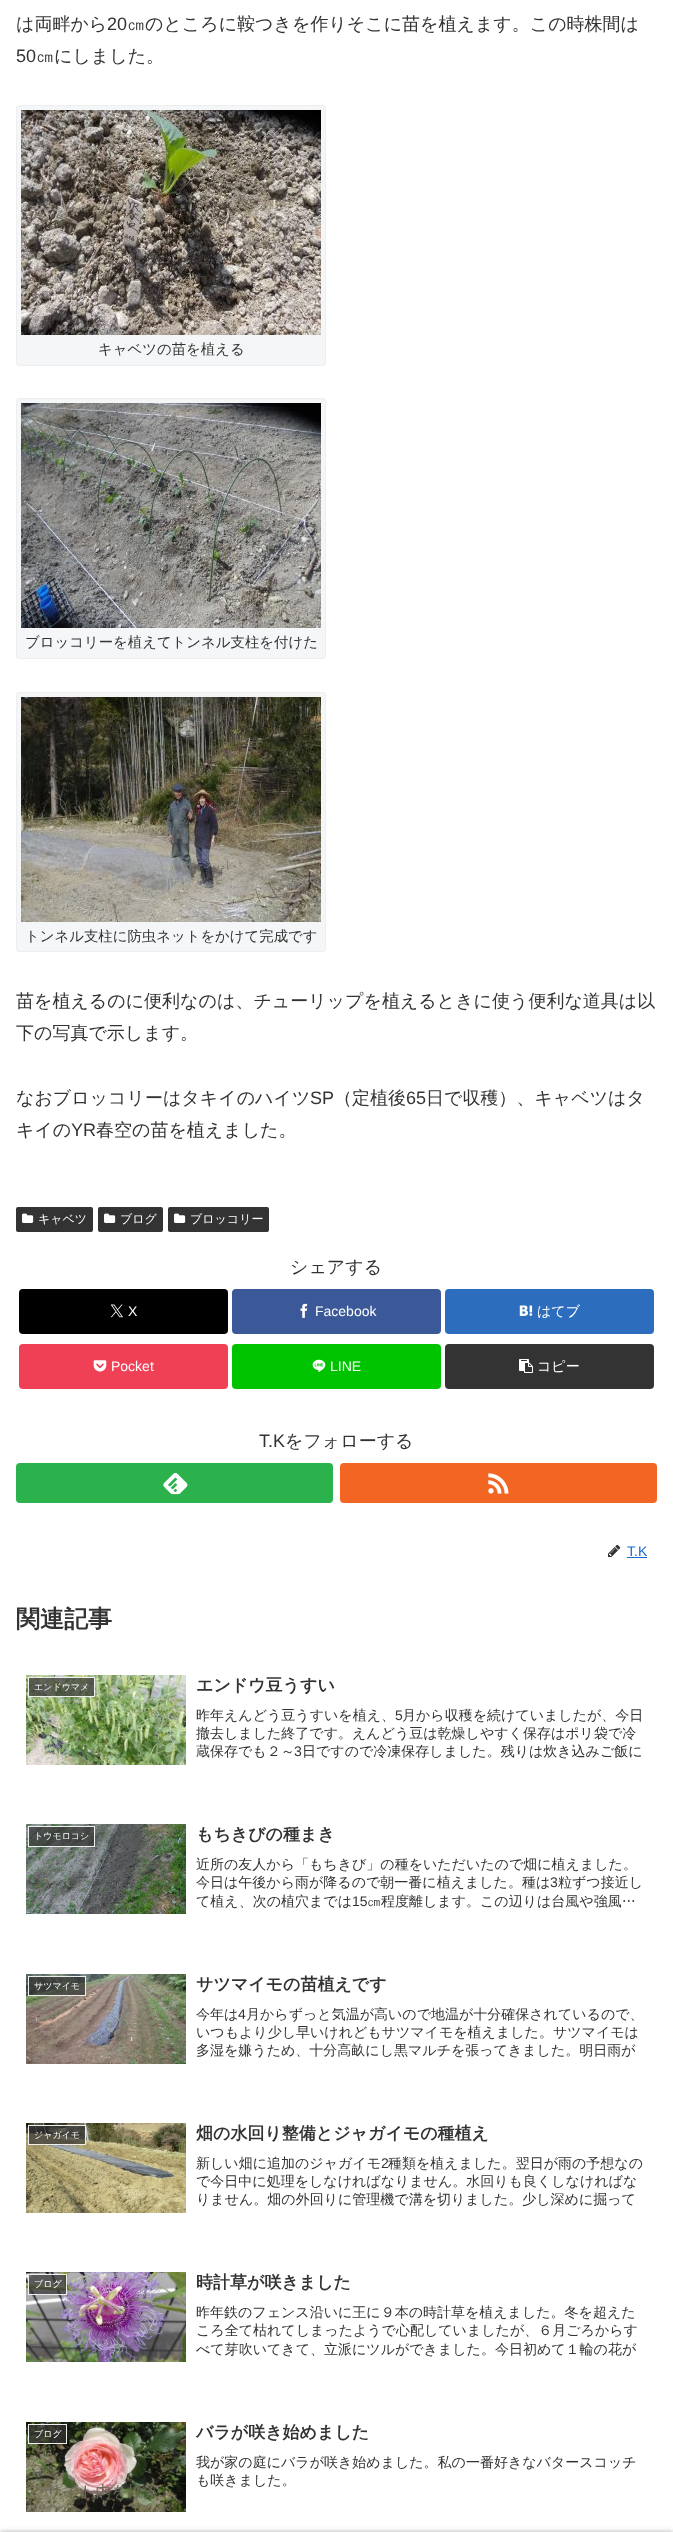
<svg xmlns="http://www.w3.org/2000/svg" width="673" height="2532">
<rect width="100%" height="100%" fill="#fff"/>
<text x="16" y="30" style="font-family:WenQuanYi Zen Hei;font-size:18px;font-weight:500;fill:#333">は両畔から</text>
<text x="107" y="30" style="font-family:Liberation Sans;font-size:18px;fill:#333">20</text>
<text x="127" y="30" style="font-family:WenQuanYi Zen Hei;font-size:18px;font-weight:500;fill:#333">㎝のところに鞍つきを作りそこに苗を植えます。この時株間は</text>
<text x="16" y="62" style="font-family:Liberation Sans;font-size:18px;fill:#333">50</text>
<text x="36" y="62" style="font-family:WenQuanYi Zen Hei;font-size:18px;font-weight:500;fill:#333">㎝にしました。</text>
<rect x="16.5" y="105.5" width="309" height="260" rx="2.5" fill="#f5f6f7" stroke="#eee"/>
<image x="21" y="110" width="300" height="225" href="media/1.png"/>
<text x="98" y="354" style="font-family:WenQuanYi Zen Hei;font-size:14.4px;font-weight:500;fill:#333">キャベツの苗を植える</text>
<rect x="16.5" y="398.5" width="309" height="260" rx="2.5" fill="#f5f6f7" stroke="#eee"/>
<image x="21" y="403" width="300" height="225" href="media/2.png"/>
<text x="25" y="647" style="font-family:WenQuanYi Zen Hei;font-size:14.4px;font-weight:500;fill:#333">ブロッコリーを植えてトンネル支柱を付けた</text>
<rect x="16.5" y="692.5" width="309" height="259" rx="2.5" fill="#f5f6f7" stroke="#eee"/>
<image x="21" y="697" width="300" height="225" href="media/3.png"/>
<text x="25" y="941" style="font-family:WenQuanYi Zen Hei;font-size:14.4px;font-weight:500;fill:#333">トンネル支柱に防虫ネットをかけて完成です</text>
<text x="16" y="1007" style="font-family:WenQuanYi Zen Hei;font-size:18px;font-weight:500;fill:#333">苗を植えるのに便利なのは、チューリップを植えるときに使う便利な道具は以</text>
<text x="16" y="1039" style="font-family:WenQuanYi Zen Hei;font-size:18px;font-weight:500;fill:#333">下の写真で示します。</text>
<text x="16" y="1104" style="font-family:WenQuanYi Zen Hei;font-size:18px;font-weight:500;fill:#333">なおブロッコリーはタキイのハイツ</text>
<text x="310" y="1104" style="font-family:Liberation Sans;font-size:18px;fill:#333">SP</text>
<text x="334" y="1104" style="font-family:WenQuanYi Zen Hei;font-size:18px;font-weight:500;fill:#333">（定植後</text>
<text x="406" y="1104" style="font-family:Liberation Sans;font-size:18px;fill:#333">65</text>
<text x="426" y="1104" style="font-family:WenQuanYi Zen Hei;font-size:18px;font-weight:500;fill:#333">日で収穫）、キャベツはタ</text>
<text x="16" y="1136" style="font-family:WenQuanYi Zen Hei;font-size:18px;font-weight:500;fill:#333">キイの</text>
<text x="71" y="1136" style="font-family:Liberation Sans;font-size:18px;fill:#333">YR</text>
<text x="96" y="1136" style="font-family:WenQuanYi Zen Hei;font-size:18px;font-weight:500;fill:#333">春空の苗を植えました。</text>
<rect x="16" y="1207" width="77" height="25" rx="2" fill="#333"/>
<image x="22" y="1213" width="12" height="10" href="media/4.png"/>
<text x="38" y="1223" style="font-family:WenQuanYi Zen Hei;font-size:12px;font-weight:500;fill:#fff">キャベツ</text>
<rect x="98" y="1207" width="65" height="25" rx="2" fill="#333"/>
<image x="104" y="1213" width="12" height="10" href="media/4.png"/>
<text x="120" y="1223" style="font-family:WenQuanYi Zen Hei;font-size:12px;font-weight:500;fill:#fff">ブログ</text>
<rect x="168" y="1207" width="101" height="25" rx="2" fill="#333"/>
<image x="174" y="1213" width="12" height="10" href="media/4.png"/>
<text x="190" y="1223" style="font-family:WenQuanYi Zen Hei;font-size:12px;font-weight:500;fill:#fff">ブロッコリー</text>
<text x="290" y="1273" style="font-family:WenQuanYi Zen Hei;font-size:18px;font-weight:500;fill:#333">シェアする</text>
<rect x="19" y="1289" width="209" height="45" rx="4" fill="#000"/>
<image x="110" y="1304" width="13" height="14" href="media/5.png"/>
<text x="128" y="1316" style="font-family:Liberation Sans;font-size:14px;fill:#fff">X</text>
<rect x="232" y="1289" width="209" height="45" rx="4" fill="#3b5998"/>
<image x="300" y="1303" width="8" height="15" href="media/6.png"/>
<text x="315" y="1316" style="font-family:Liberation Sans;font-size:14px;fill:#fff">Facebook</text>
<rect x="445" y="1289" width="209" height="45" rx="4" fill="#2c6ebd"/>
<image x="519" y="1305" width="14" height="11" href="media/7.png"/>
<text x="537" y="1316" style="font-family:WenQuanYi Zen Hei;font-size:14px;font-weight:500;fill:#fff">はてブ</text>
<rect x="19" y="1344" width="209" height="45" rx="4" fill="#ef4056"/>
<image x="93" y="1360" width="14" height="12" href="media/8.png"/>
<text x="111" y="1371" style="font-family:Liberation Sans;font-size:14px;fill:#fff">Pocket</text>
<rect x="232" y="1344" width="209" height="45" rx="4" fill="#00c300"/>
<image x="312" y="1359" width="14" height="13" href="media/9.png"/>
<text x="330" y="1371" style="font-family:Liberation Sans;font-size:14px;fill:#fff">LINE</text>
<rect x="445" y="1344" width="209" height="45" rx="4" fill="#333"/>
<image x="519" y="1359" width="14" height="14" href="media/10.png"/>
<text x="537" y="1371" style="font-family:WenQuanYi Zen Hei;font-size:14px;font-weight:500;fill:#fff">コピー</text>
<text x="259" y="1447" style="font-family:Liberation Sans;font-size:18px;fill:#333">T.K</text>
<text x="285" y="1447" style="font-family:WenQuanYi Zen Hei;font-size:18px;font-weight:500;fill:#333">をフォローする</text>
<rect x="16" y="1463" width="317" height="40" rx="4" fill="#2bb24c"/>
<image x="163" y="1472" width="25" height="23" href="media/11.png"/>
<rect x="340" y="1463" width="317" height="40" rx="4" fill="#f26522"/>
<image x="488" y="1473" width="21" height="21" href="media/12.png"/>
<image x="608" y="1544" width="13" height="13" href="media/13.png"/>
<text x="627" y="1556" style="font-family:Liberation Sans;font-size:14px;fill:#1967d2">T.K</text>
<rect x="627" y="1557" width="20" height="1" fill="#1967d2"/>
<text x="16" y="1627" style="font-family:WenQuanYi Zen Hei;font-size:24px;font-weight:bold;fill:#333">関連記事</text>
<image x="26" y="1675" width="160" height="90" href="media/14.png"/>
<rect x="28.5" y="1677.5" width="66" height="19" fill="#333333b3" stroke="#eee"/>
<text x="34" y="1690" style="font-family:WenQuanYi Zen Hei;font-size:9px;font-weight:500;fill:#fff">エンドウマメ</text>
<text x="196" y="1691" style="font-family:WenQuanYi Zen Hei;font-size:17px;font-weight:bold;fill:#333">エンドウ豆うすい</text>
<text x="196" y="1720" style="font-family:WenQuanYi Zen Hei;font-size:14px;font-weight:500;fill:#333">昨年えんどう豆うすいを植え、</text>
<text x="395" y="1720" style="font-family:Liberation Sans;font-size:14px;fill:#333">5</text>
<text x="402" y="1720" style="font-family:WenQuanYi Zen Hei;font-size:14px;font-weight:500;fill:#333">月から収穫を続けていましたが、今日</text>
<text x="196" y="1738" style="font-family:WenQuanYi Zen Hei;font-size:14px;font-weight:500;fill:#333">撤去しました終了です。えんどう豆は乾燥しやすく保存はポリ袋で冷</text>
<text x="196" y="1756" style="font-family:WenQuanYi Zen Hei;font-size:14px;font-weight:500;fill:#333">蔵保存でも２～</text>
<text x="294" y="1756" style="font-family:Liberation Sans;font-size:14px;fill:#333">3</text>
<text x="302" y="1756" style="font-family:WenQuanYi Zen Hei;font-size:14px;font-weight:500;fill:#333">日ですので冷凍保存しました。残りは炊き込みご飯に</text>
<image x="26" y="1824" width="160" height="90" href="media/15.png"/>
<rect x="28.5" y="1826.5" width="66" height="20" fill="#333333b3" stroke="#eee"/>
<text x="34" y="1839" style="font-family:WenQuanYi Zen Hei;font-size:9px;font-weight:500;fill:#fff">トウモロコシ</text>
<text x="196" y="1840" style="font-family:WenQuanYi Zen Hei;font-size:17px;font-weight:bold;fill:#333">もちきびの種まき</text>
<text x="196" y="1869" style="font-family:WenQuanYi Zen Hei;font-size:14px;font-weight:500;fill:#333">近所の友人から「もちきび」の種をいただいたので畑に植えました。</text>
<text x="196" y="1887" style="font-family:WenQuanYi Zen Hei;font-size:14px;font-weight:500;fill:#333">今日は午後から雨が降るので朝一番に植えました。種は</text>
<text x="550" y="1887" style="font-family:Liberation Sans;font-size:14px;fill:#333">3</text>
<text x="558" y="1887" style="font-family:WenQuanYi Zen Hei;font-size:14px;font-weight:500;fill:#333">粒ずつ接近し</text>
<text x="196" y="1906" style="font-family:WenQuanYi Zen Hei;font-size:14px;font-weight:500;fill:#333">て植え、次の植穴までは</text>
<text x="352" y="1906" style="font-family:Liberation Sans;font-size:14px;fill:#333">15</text>
<text x="367" y="1906" style="font-family:WenQuanYi Zen Hei;font-size:14px;font-weight:500;fill:#333">㎝程度離します。この辺りは台風や強風…</text>
<image x="26" y="1974" width="160" height="90" href="media/16.png"/>
<rect x="28.5" y="1976.5" width="57" height="19" fill="#333333b3" stroke="#eee"/>
<text x="34" y="1989" style="font-family:WenQuanYi Zen Hei;font-size:9px;font-weight:500;fill:#fff">サツマイモ</text>
<text x="196" y="1990" style="font-family:WenQuanYi Zen Hei;font-size:17px;font-weight:bold;fill:#333">サツマイモの苗植えです</text>
<text x="196" y="2019" style="font-family:WenQuanYi Zen Hei;font-size:14px;font-weight:500;fill:#333">今年は</text>
<text x="238" y="2019" style="font-family:Liberation Sans;font-size:14px;fill:#333">4</text>
<text x="246" y="2019" style="font-family:WenQuanYi Zen Hei;font-size:14px;font-weight:500;fill:#333">月からずっと気温が高いので地温が十分確保されているので、</text>
<text x="196" y="2037" style="font-family:WenQuanYi Zen Hei;font-size:14px;font-weight:500;fill:#333">いつもより少し早いけれどもサツマイモを植えました。サツマイモは</text>
<text x="196" y="2055" style="font-family:WenQuanYi Zen Hei;font-size:14px;font-weight:500;fill:#333">多湿を嫌うため、十分高畝にし黒マルチを張ってきました。明日雨が</text>
<image x="26" y="2123" width="160" height="90" href="media/17.png"/>
<rect x="28.5" y="2125.5" width="57" height="19" fill="#333333b3" stroke="#eee"/>
<text x="34" y="2138" style="font-family:WenQuanYi Zen Hei;font-size:9px;font-weight:500;fill:#fff">ジャガイモ</text>
<text x="196" y="2139" style="font-family:WenQuanYi Zen Hei;font-size:17px;font-weight:bold;fill:#333">畑の水回り整備とジャガイモの種植え</text>
<text x="196" y="2168" style="font-family:WenQuanYi Zen Hei;font-size:14px;font-weight:500;fill:#333">新しい畑に追加のジャガイモ</text>
<text x="381" y="2168" style="font-family:Liberation Sans;font-size:14px;fill:#333">2</text>
<text x="388" y="2168" style="font-family:WenQuanYi Zen Hei;font-size:14px;font-weight:500;fill:#333">種類を植えました。翌日が雨の予想なの</text>
<text x="196" y="2186" style="font-family:WenQuanYi Zen Hei;font-size:14px;font-weight:500;fill:#333">で今日中に処理をしなければなりません。水回りも良くしなければな</text>
<text x="196" y="2204" style="font-family:WenQuanYi Zen Hei;font-size:14px;font-weight:500;fill:#333">りません。畑の外回りに管理機で溝を切りました。少し深めに掘って</text>
<image x="26" y="2272" width="160" height="90" href="media/18.png"/>
<rect x="28.5" y="2274.5" width="38" height="20" fill="#333333b3" stroke="#eee"/>
<text x="34" y="2287" style="font-family:WenQuanYi Zen Hei;font-size:9px;font-weight:500;fill:#fff">ブログ</text>
<text x="196" y="2288" style="font-family:WenQuanYi Zen Hei;font-size:17px;font-weight:bold;fill:#333">時計草が咲きました</text>
<text x="196" y="2317" style="font-family:WenQuanYi Zen Hei;font-size:14px;font-weight:500;fill:#333">昨年鉄のフェンス沿いに王に９本の時計草を植えました。冬を超えた</text>
<text x="196" y="2335" style="font-family:WenQuanYi Zen Hei;font-size:14px;font-weight:500;fill:#333">ころ全て枯れてしまったようで心配していましたが、６月ごろからす</text>
<text x="196" y="2354" style="font-family:WenQuanYi Zen Hei;font-size:14px;font-weight:500;fill:#333">べて芽吹いてきて、立派にツルができました。今日初めて１輪の花が</text>
<image x="26" y="2422" width="160" height="90" href="media/19.png"/>
<rect x="28.5" y="2424.5" width="38" height="19" fill="#333333b3" stroke="#eee"/>
<text x="34" y="2437" style="font-family:WenQuanYi Zen Hei;font-size:9px;font-weight:500;fill:#fff">ブログ</text>
<text x="196" y="2438" style="font-family:WenQuanYi Zen Hei;font-size:17px;font-weight:bold;fill:#333">バラが咲き始めました</text>
<text x="196" y="2467" style="font-family:WenQuanYi Zen Hei;font-size:14px;font-weight:500;fill:#333">我が家の庭にバラが咲き始めました。私の一番好きなバタースコッチ</text>
<text x="196" y="2485" style="font-family:WenQuanYi Zen Hei;font-size:14px;font-weight:500;fill:#333">も咲きました。</text>
<rect y="2532" width="673" height="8" fill="#a9a9a9" filter="blur(2.5px)"/>
<text x="46" y="2497" style="font-family:WenQuanYi Zen Hei;font-size:16px;font-weight:500;fill:#676852">サイト内を検索</text>
</svg>
